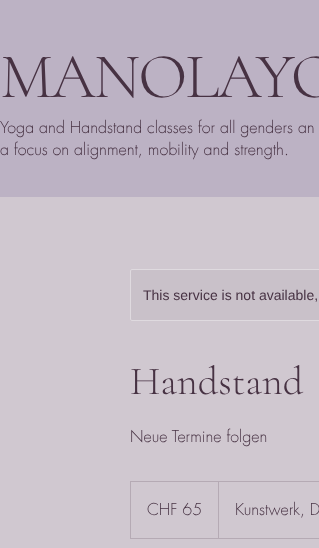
<svg xmlns="http://www.w3.org/2000/svg" width="319" height="548">
<rect width="100%" height="100%" fill="#bcb2c4"/>
<text x="0" y="97" style="font-family:Cormorant Garamond;font-size:64px;font-weight:300;letter-spacing:-2px;fill:#473243">MANOLAYO</text>
<text x="0" y="133" style="font-family:futura;font-size:16px;font-weight:300;fill:#473243">Yoga and Handstand classes for all genders an</text>
<text x="0" y="155" style="font-family:futura;font-size:16px;font-weight:300;fill:#473243">a focus on alignment, mobility and strength.</text>
<rect y="197" width="319" height="351" fill="#d0c8d0"/>
<rect x="130.5" y="269.5" width="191" height="51" rx="1.5" fill="#c9c1c9" stroke="#dfdadf"/>
<text x="143" y="300" style="font-family:Liberation Sans;font-size:14px;fill:#473243">This service is not available,</text>
<text x="130" y="394" style="font-family:Cormorant Garamond;font-size:40px;font-weight:300;fill:#473243">Handstand</text>
<text x="130" y="442" style="font-family:futura;font-size:16px;font-weight:300;fill:#473243">Neue Termine folgen</text>
<rect x="130.5" y="481.5" width="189" height="57" fill="none" stroke="#b5aab4"/>
<text x="147" y="515" style="font-family:futura;font-size:16px;font-weight:300;fill:#473243">CHF 65</text>
<path d="M218 538v-57l1 1v56z" fill="#b5aab4"/>
<text x="235" y="515" style="font-family:futura;font-size:16px;font-weight:300;fill:#473243">Kunstwerk, D</text>
</svg>
